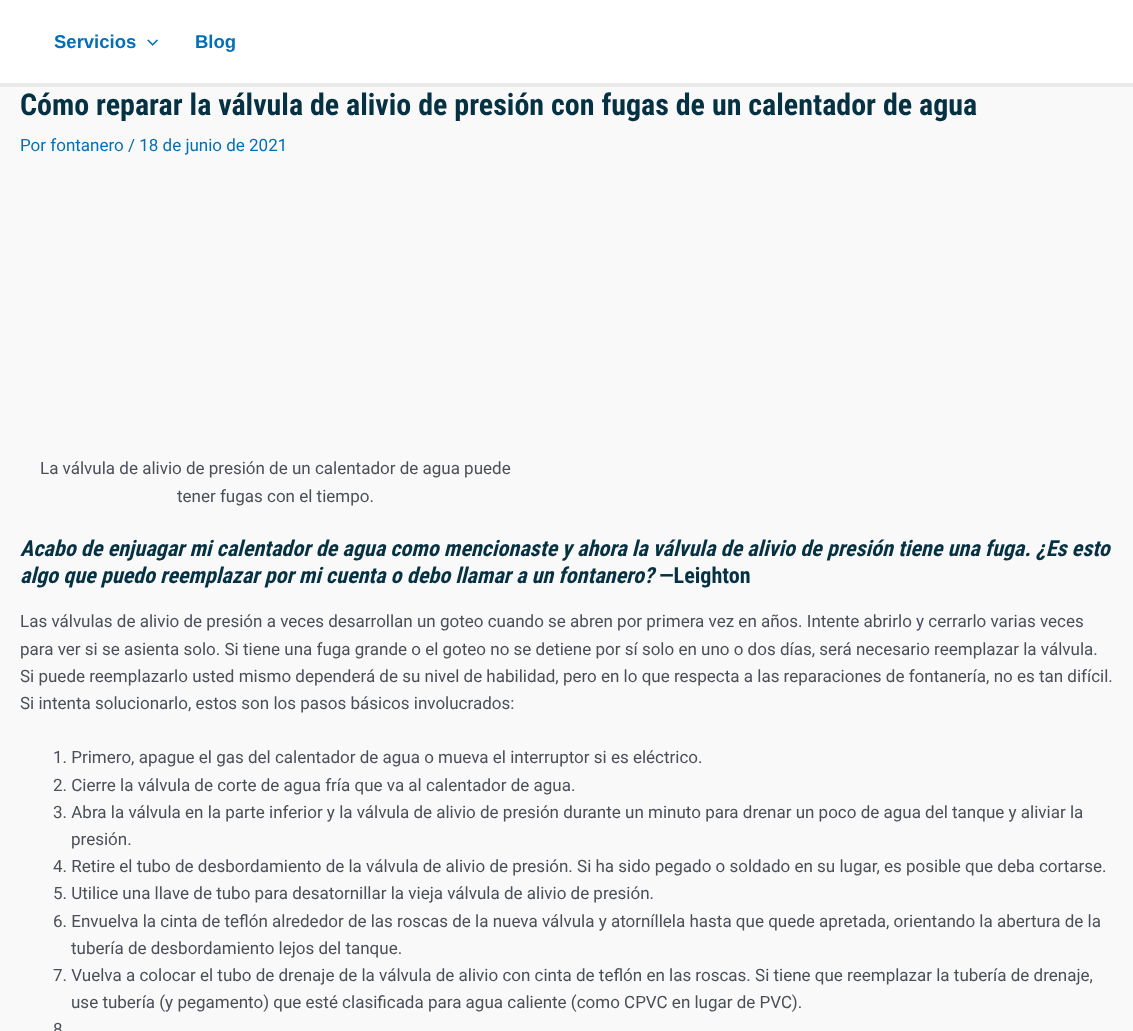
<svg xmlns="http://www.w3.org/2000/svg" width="1133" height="1031">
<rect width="100%" height="100%" fill="#f9f9f9"/>
<rect width="1133" height="83" fill="#fff"/>
<rect y="83" width="1133" height="4" fill="#eaeaea"/>
<text x="54" y="48" style="font-family:Liberation Sans;font-size:18.5px;font-weight:bold;fill:#0170b9">Servicios</text>
<image x="147" y="39" width="11" height="7" href="media/1.png"/>
<text x="195" y="48" style="font-family:Liberation Sans;font-size:18.5px;font-weight:bold;fill:#0170b9">Blog</text>
<text x="20" y="115" style="font-family:Roboto Condensed;font-size:30px;font-weight:bold;fill:#053143">Cómo reparar la válvula de alivio de presión con fugas de un calentador de agua</text>
<text x="20" y="151" style="font-family:Roboto;font-size:17px;fill:#0170b9">Por fontanero / 18 de junio de 2021</text>
<text x="40" y="474" style="font-family:Roboto;font-size:17px;fill:#4b4f58">La válvula de alivio de presión de un calentador de agua puede</text>
<text x="177" y="502" style="font-family:Roboto;font-size:17px;fill:#4b4f58">tener fugas con el tiempo.</text>
<text x="20" y="556" style="font-family:Roboto Condensed;font-size:22.1px;font-weight:bold;font-style:italic;fill:#053143">Acabo de enjuagar mi calentador de agua como mencionaste y ahora la válvula de alivio de presión tiene una fuga. ¿Es esto</text>
<text x="20" y="583" style="font-family:Roboto Condensed;font-size:22.1px;font-weight:bold;font-style:italic;fill:#053143">algo que puedo reemplazar por mi cuenta o debo llamar a un fontanero?</text>
<text x="659" y="583" style="font-family:Roboto Condensed;font-size:22.1px;font-weight:bold;fill:#053143">—Leighton</text>
<text x="20" y="627" style="font-family:Roboto;font-size:17px;fill:#4b4f58">Las válvulas de alivio de presión a veces desarrollan un goteo cuando se abren por primera vez en años. Intente abrirlo y cerrarlo varias veces</text>
<text x="20" y="655" style="font-family:Roboto;font-size:17px;fill:#4b4f58">para ver si se asienta solo. Si tiene una fuga grande o el goteo no se detiene por sí solo en uno o dos días, será necesario reemplazar la válvula.</text>
<text x="20" y="682" style="font-family:Roboto;font-size:17px;fill:#4b4f58">Si puede reemplazarlo usted mismo dependerá de su nivel de habilidad, pero en lo que respecta a las reparaciones de fontanería, no es tan difícil.</text>
<text x="20" y="709" style="font-family:Roboto;font-size:17px;fill:#4b4f58">Si intenta solucionarlo, estos son los pasos básicos involucrados:</text>
<text x="53" y="763" style="font-family:Roboto;font-size:17px;fill:#4b4f58">1. Primero, apague el gas del calentador de agua o mueva el interruptor si es eléctrico.</text>
<text x="53" y="791" style="font-family:Roboto;font-size:17px;fill:#4b4f58">2. Cierre la válvula de corte de agua fría que va al calentador de agua.</text>
<text x="53" y="818" style="font-family:Roboto;font-size:17px;fill:#4b4f58">3. Abra la válvula en la parte inferior y la válvula de alivio de presión durante un minuto para drenar un poco de agua del tanque y aliviar la</text>
<text x="71" y="845" style="font-family:Roboto;font-size:17px;fill:#4b4f58">presión.</text>
<text x="53" y="872" style="font-family:Roboto;font-size:17px;fill:#4b4f58">4. Retire el tubo de desbordamiento de la válvula de alivio de presión. Si ha sido pegado o soldado en su lugar, es posible que deba cortarse.</text>
<text x="53" y="899" style="font-family:Roboto;font-size:17px;fill:#4b4f58">5. Utilice una llave de tubo para desatornillar la vieja válvula de alivio de presión.</text>
<text x="53" y="927" style="font-family:Roboto;font-size:17px;fill:#4b4f58">6. Envuelva la cinta de teflón alrededor de las roscas de la nueva válvula y atorníllela hasta que quede apretada, orientando la abertura de la</text>
<text x="71" y="954" style="font-family:Roboto;font-size:17px;fill:#4b4f58">tubería de desbordamiento lejos del tanque.</text>
<text x="53" y="981" style="font-family:Roboto;font-size:17px;fill:#4b4f58">7. Vuelva a colocar el tubo de drenaje de la válvula de alivio con cinta de teflón en las roscas. Si tiene que reemplazar la tubería de drenaje,</text>
<text x="71" y="1008" style="font-family:Roboto;font-size:17px;fill:#4b4f58">use tubería (y pegamento) que esté clasificada para agua caliente (como CPVC en lugar de PVC).</text>
<text x="53" y="1035" style="font-family:Roboto;font-size:17px;fill:#4b4f58">8</text>
</svg>
